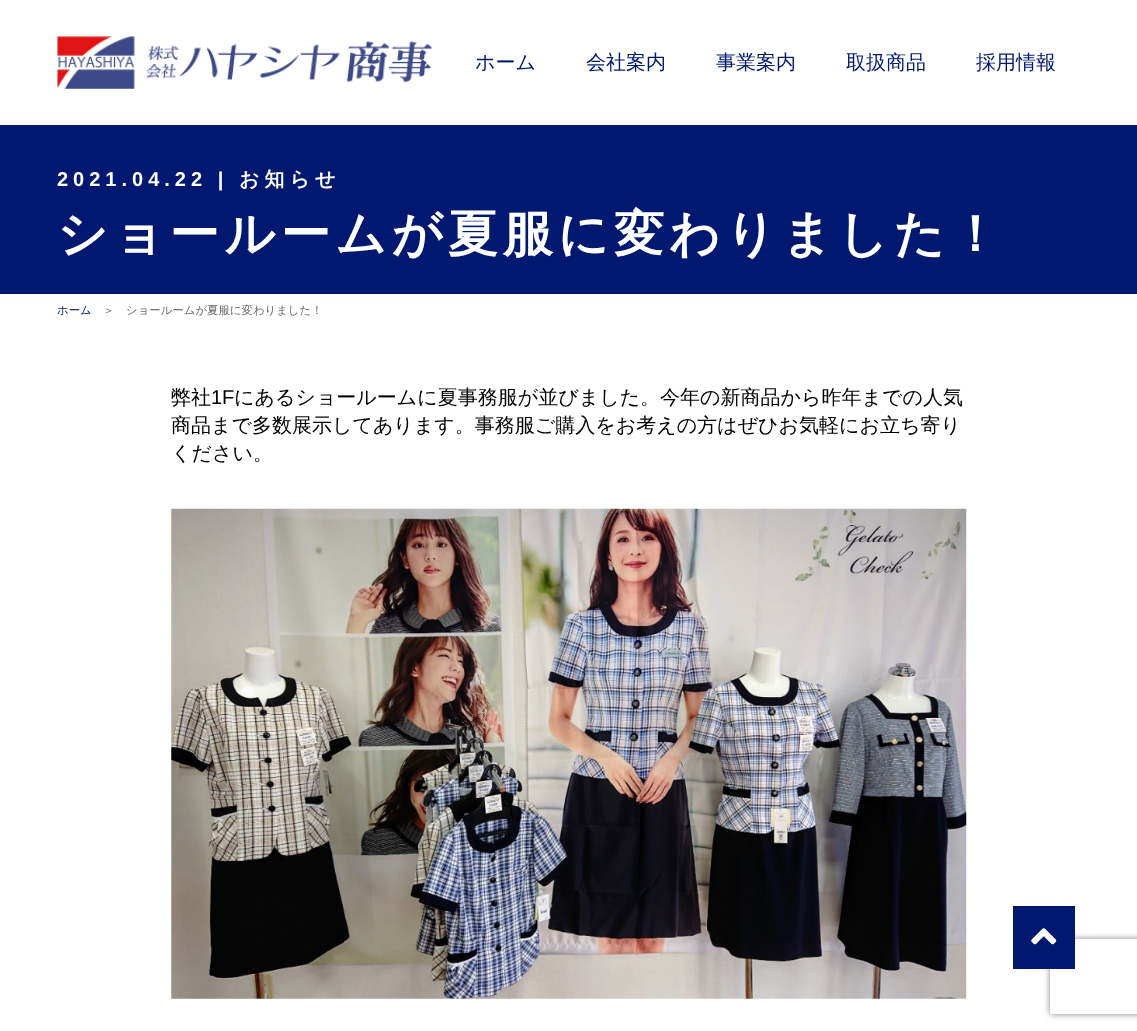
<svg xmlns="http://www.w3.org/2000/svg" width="1137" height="1031">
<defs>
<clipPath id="clip1"><path d="M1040 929h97v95h-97zm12.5 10h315c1.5 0 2.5 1 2.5 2.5v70c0 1.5-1 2.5-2.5 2.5h-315c-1.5 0-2.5-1-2.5-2.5v-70c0-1.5 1-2.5 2.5-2.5z" clip-rule="evenodd"/></clipPath>
</defs>
<rect width="100%" height="100%" fill="#fff"/>
<image x="57" y="36" width="375" height="53" href="media/1.png"/>
<text x="475" y="69" style="font-family:WenQuanYi Zen Hei;font-size:20px;font-weight:500;fill:#001870">ホーム</text>
<text x="586" y="69" style="font-family:WenQuanYi Zen Hei;font-size:20px;font-weight:500;fill:#001870">会社案内</text>
<text x="716" y="69" style="font-family:WenQuanYi Zen Hei;font-size:20px;font-weight:500;fill:#001870">事業案内</text>
<text x="846" y="69" style="font-family:WenQuanYi Zen Hei;font-size:20px;font-weight:500;fill:#001870">取扱商品</text>
<text x="976" y="69" style="font-family:WenQuanYi Zen Hei;font-size:20px;font-weight:500;fill:#001870">採用情報</text>
<rect y="125" width="1137" height="169" fill="#001870"/>
<text x="57" y="186" style="font-family:Liberation Sans;font-size:20px;font-weight:bold;letter-spacing:5px;fill:#fff">2021.04.22 |</text>
<text x="239" y="186" style="font-family:WenQuanYi Zen Hei;font-size:20px;font-weight:bold;letter-spacing:5px;fill:#fff">お知らせ</text>
<text x="57" y="251" style="font-family:WenQuanYi Zen Hei;font-size:50px;font-weight:bold;letter-spacing:5px;fill:#fff">ショールームが夏服に変わりました！</text>
<text x="57" y="314" style="font-family:WenQuanYi Zen Hei;font-size:11.4px;font-weight:500;fill:#001870">ホーム</text>
<text x="103" y="314" style="font-family:WenQuanYi Zen Hei;font-size:11.4px;font-weight:500;fill:#6a6a6a">＞</text>
<text x="126" y="314" style="font-family:WenQuanYi Zen Hei;font-size:11.4px;font-weight:500;fill:#6a6a6a">ショールームが夏服に変わりました！</text>
<text x="171" y="404" style="font-family:WenQuanYi Zen Hei;font-size:20px;font-weight:500;fill:#000">弊社</text>
<text x="211" y="404" style="font-family:Liberation Sans;font-size:20px;fill:#000">1F</text>
<text x="234" y="404" style="font-family:WenQuanYi Zen Hei;font-size:20px;font-weight:500;fill:#000">にあるショールームに夏事務服が並びました。今年の新商品から昨年までの人気</text>
<text x="171" y="432" style="font-family:WenQuanYi Zen Hei;font-size:20px;font-weight:500;fill:#000">商品まで多数展示してあります。事務服ご購入をお考えの方はぜひお気軽にお立ち寄り</text>
<text x="171" y="460" style="font-family:WenQuanYi Zen Hei;font-size:20px;font-weight:500;fill:#000">ください。</text>
<image x="171" y="508" width="796" height="491" href="media/2.png"/>
<g clip-path="url(#clip1)">
<rect x="1050" y="939" width="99" height="75" rx="2.5" fill="#808080" filter="blur(3px)"/>
</g>
<rect x="1013" y="906" width="62" height="63" fill="#001870"/>
<image x="1031" y="928" width="26" height="17" href="media/3.png"/>
</svg>
